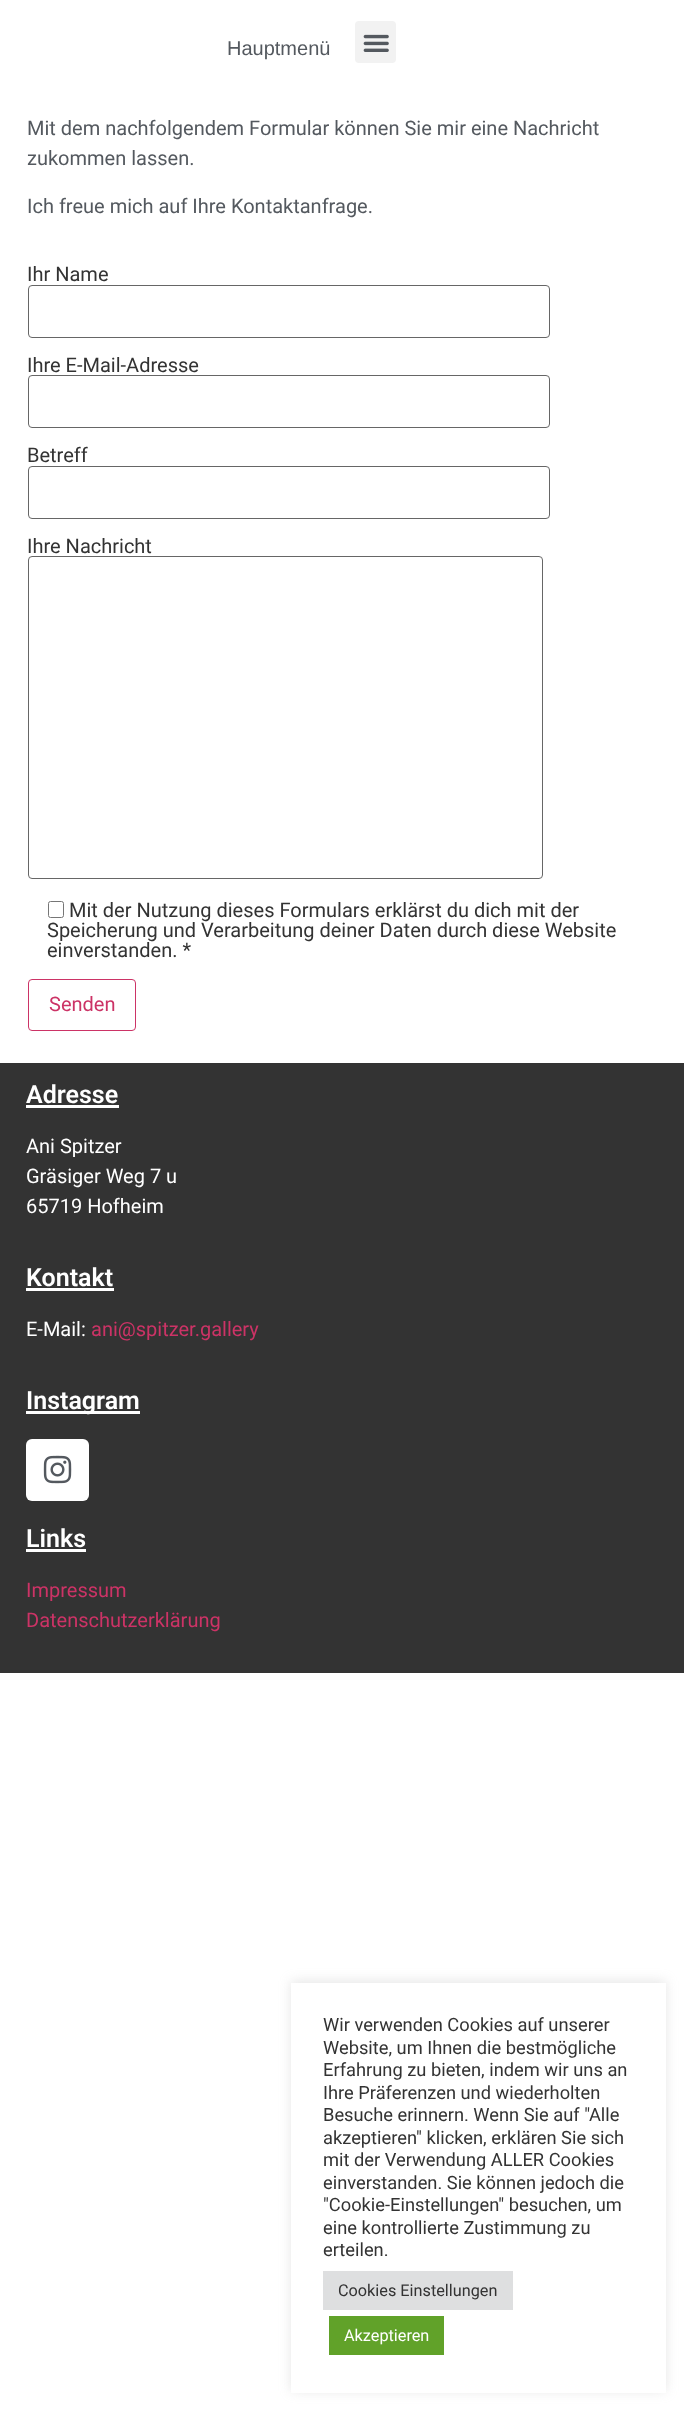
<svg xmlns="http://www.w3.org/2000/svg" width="684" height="2411">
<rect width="100%" height="100%" fill="#fff"/>
<text x="227" y="55" style="font-family:Liberation Sans;font-size:20px;fill:#54595f">Hauptmenü</text>
<rect x="355" y="21" width="41" height="42" rx="4" fill="#f2f2f2"/>
<image x="363" y="34" width="26" height="18" href="media/1.png"/>
<text x="27" y="135" style="font-family:Roboto;font-size:20px;fill:#54595f">Mit dem nachfolgendem Formular können Sie mir eine Nachricht</text>
<text x="27" y="165" style="font-family:Roboto;font-size:20px;fill:#54595f">zukommen lassen.</text>
<text x="27" y="213" style="font-family:Roboto;font-size:20px;fill:#54595f">Ich freue mich auf Ihre Kontaktanfrage.</text>
<text x="27" y="281" style="font-family:Roboto;font-size:20px;fill:#333">Ihr Name</text>
<rect x="28.5" y="285.5" width="521" height="52" rx="3.5" fill="none" stroke="#666"/>
<text x="27" y="372" style="font-family:Roboto;font-size:20px;fill:#333">Ihre E-Mail-Adresse</text>
<rect x="28.5" y="375.5" width="521" height="52" rx="3.5" fill="none" stroke="#666"/>
<text x="27" y="462" style="font-family:Roboto;font-size:20px;fill:#333">Betreff</text>
<rect x="28.5" y="466.5" width="521" height="52" rx="3.5" fill="none" stroke="#666"/>
<text x="27" y="553" style="font-family:Roboto;font-size:20px;fill:#333">Ihre Nachricht</text>
<rect x="28.5" y="556.5" width="514" height="322" rx="3.5" fill="none" stroke="#666"/>
<rect x="48.5" y="901.5" width="15" height="16" rx="2" fill="none" stroke="#767676"/>
<text x="69" y="917" style="font-family:Roboto;font-size:20px;fill:#333">Mit der Nutzung dieses Formulars erklärst du dich mit der</text>
<text x="47" y="937" style="font-family:Roboto;font-size:20px;fill:#333">Speicherung und Verarbeitung deiner Daten durch diese Website</text>
<text x="47" y="957" style="font-family:Roboto;font-size:20px;fill:#333">einverstanden. *</text>
<rect x="28.5" y="979.5" width="107" height="51" rx="3.5" fill="none" stroke="#c36"/>
<text x="49" y="1011" style="font-family:Roboto;font-size:20px;fill:#c36">Senden</text>
<rect y="1063" width="684" height="610" fill="#333"/>
<text x="26" y="1103" style="font-family:Roboto;font-size:25px;font-weight:600;fill:#fff">Adresse</text>
<rect x="26" y="1105" width="93" height="3" fill="#fff"/>
<text x="26" y="1153" style="font-family:Roboto;font-size:20px;fill:#fff">Ani Spitzer</text>
<text x="26" y="1183" style="font-family:Roboto;font-size:20px;fill:#fff">Gräsiger Weg 7 u</text>
<text x="26" y="1213" style="font-family:Roboto;font-size:20px;fill:#fff">65719 Hofheim</text>
<text x="26" y="1286" style="font-family:Roboto;font-size:25px;font-weight:600;fill:#fff">Kontakt</text>
<rect x="26" y="1288" width="88" height="3" fill="#fff"/>
<text x="26" y="1336" style="font-family:Roboto;font-size:20px;fill:#fff">E-Mail:</text>
<text x="91" y="1336" style="font-family:Roboto;font-size:20px;fill:#c36">ani@spitzer.gallery</text>
<rect x="26" y="1411" width="114" height="3" fill="#fff"/>
<text x="26" y="1409" style="font-family:Roboto;font-size:25px;font-weight:600;fill:#fff">Instagram</text>
<rect x="26" y="1439" width="63" height="62" rx="6" fill="#fff"/>
<image x="43" y="1455" width="29" height="29" href="media/2.png"/>
<text x="26" y="1547" style="font-family:Roboto;font-size:25px;font-weight:600;fill:#fff">Links</text>
<rect x="26" y="1549" width="60" height="3" fill="#fff"/>
<text x="26" y="1597" style="font-family:Roboto;font-size:20px;fill:#c36">Impressum</text>
<text x="26" y="1627" style="font-family:Roboto;font-size:20px;fill:#c36">Datenschutzerklärung</text>
<rect x="291" y="1981" width="375" height="410" fill="#acabab4d" filter="blur(6px)"/>
<rect x="291" y="1983" width="375" height="410" fill="#fff"/>
<text x="323" y="2031" style="font-family:Roboto;font-size:18.3px;fill:#333">Wir verwenden Cookies auf unserer</text>
<text x="323" y="2054" style="font-family:Roboto;font-size:18.3px;fill:#333">Website, um Ihnen die bestmögliche</text>
<text x="323" y="2076" style="font-family:Roboto;font-size:18.3px;fill:#333">Erfahrung zu bieten, indem wir uns an</text>
<text x="323" y="2099" style="font-family:Roboto;font-size:18.3px;fill:#333">Ihre Präferenzen und wiederholten</text>
<text x="323" y="2121" style="font-family:Roboto;font-size:18.3px;fill:#333">Besuche erinnern. Wenn Sie auf "Alle</text>
<text x="323" y="2144" style="font-family:Roboto;font-size:18.3px;fill:#333">akzeptieren" klicken, erklären Sie sich</text>
<text x="323" y="2166" style="font-family:Roboto;font-size:18.3px;fill:#333">mit der Verwendung ALLER Cookies</text>
<text x="323" y="2189" style="font-family:Roboto;font-size:18.3px;fill:#333">einverstanden. Sie können jedoch die</text>
<text x="323" y="2211" style="font-family:Roboto;font-size:18.3px;fill:#333">"Cookie-Einstellungen" besuchen, um</text>
<text x="323" y="2234" style="font-family:Roboto;font-size:18.3px;fill:#333">eine kontrollierte Zustimmung zu</text>
<text x="323" y="2256" style="font-family:Roboto;font-size:18.3px;fill:#333">erteilen.</text>
<rect x="323" y="2271" width="190" height="39" fill="#dedfe0"/>
<text x="338" y="2296" style="font-family:Roboto;font-size:16.25px;fill:#333">Cookies Einstellungen</text>
<rect x="329" y="2316" width="115" height="39" fill="#61a229"/>
<text x="344" y="2341" style="font-family:Roboto;font-size:16.25px;fill:#fff">Akzeptieren</text>
</svg>
